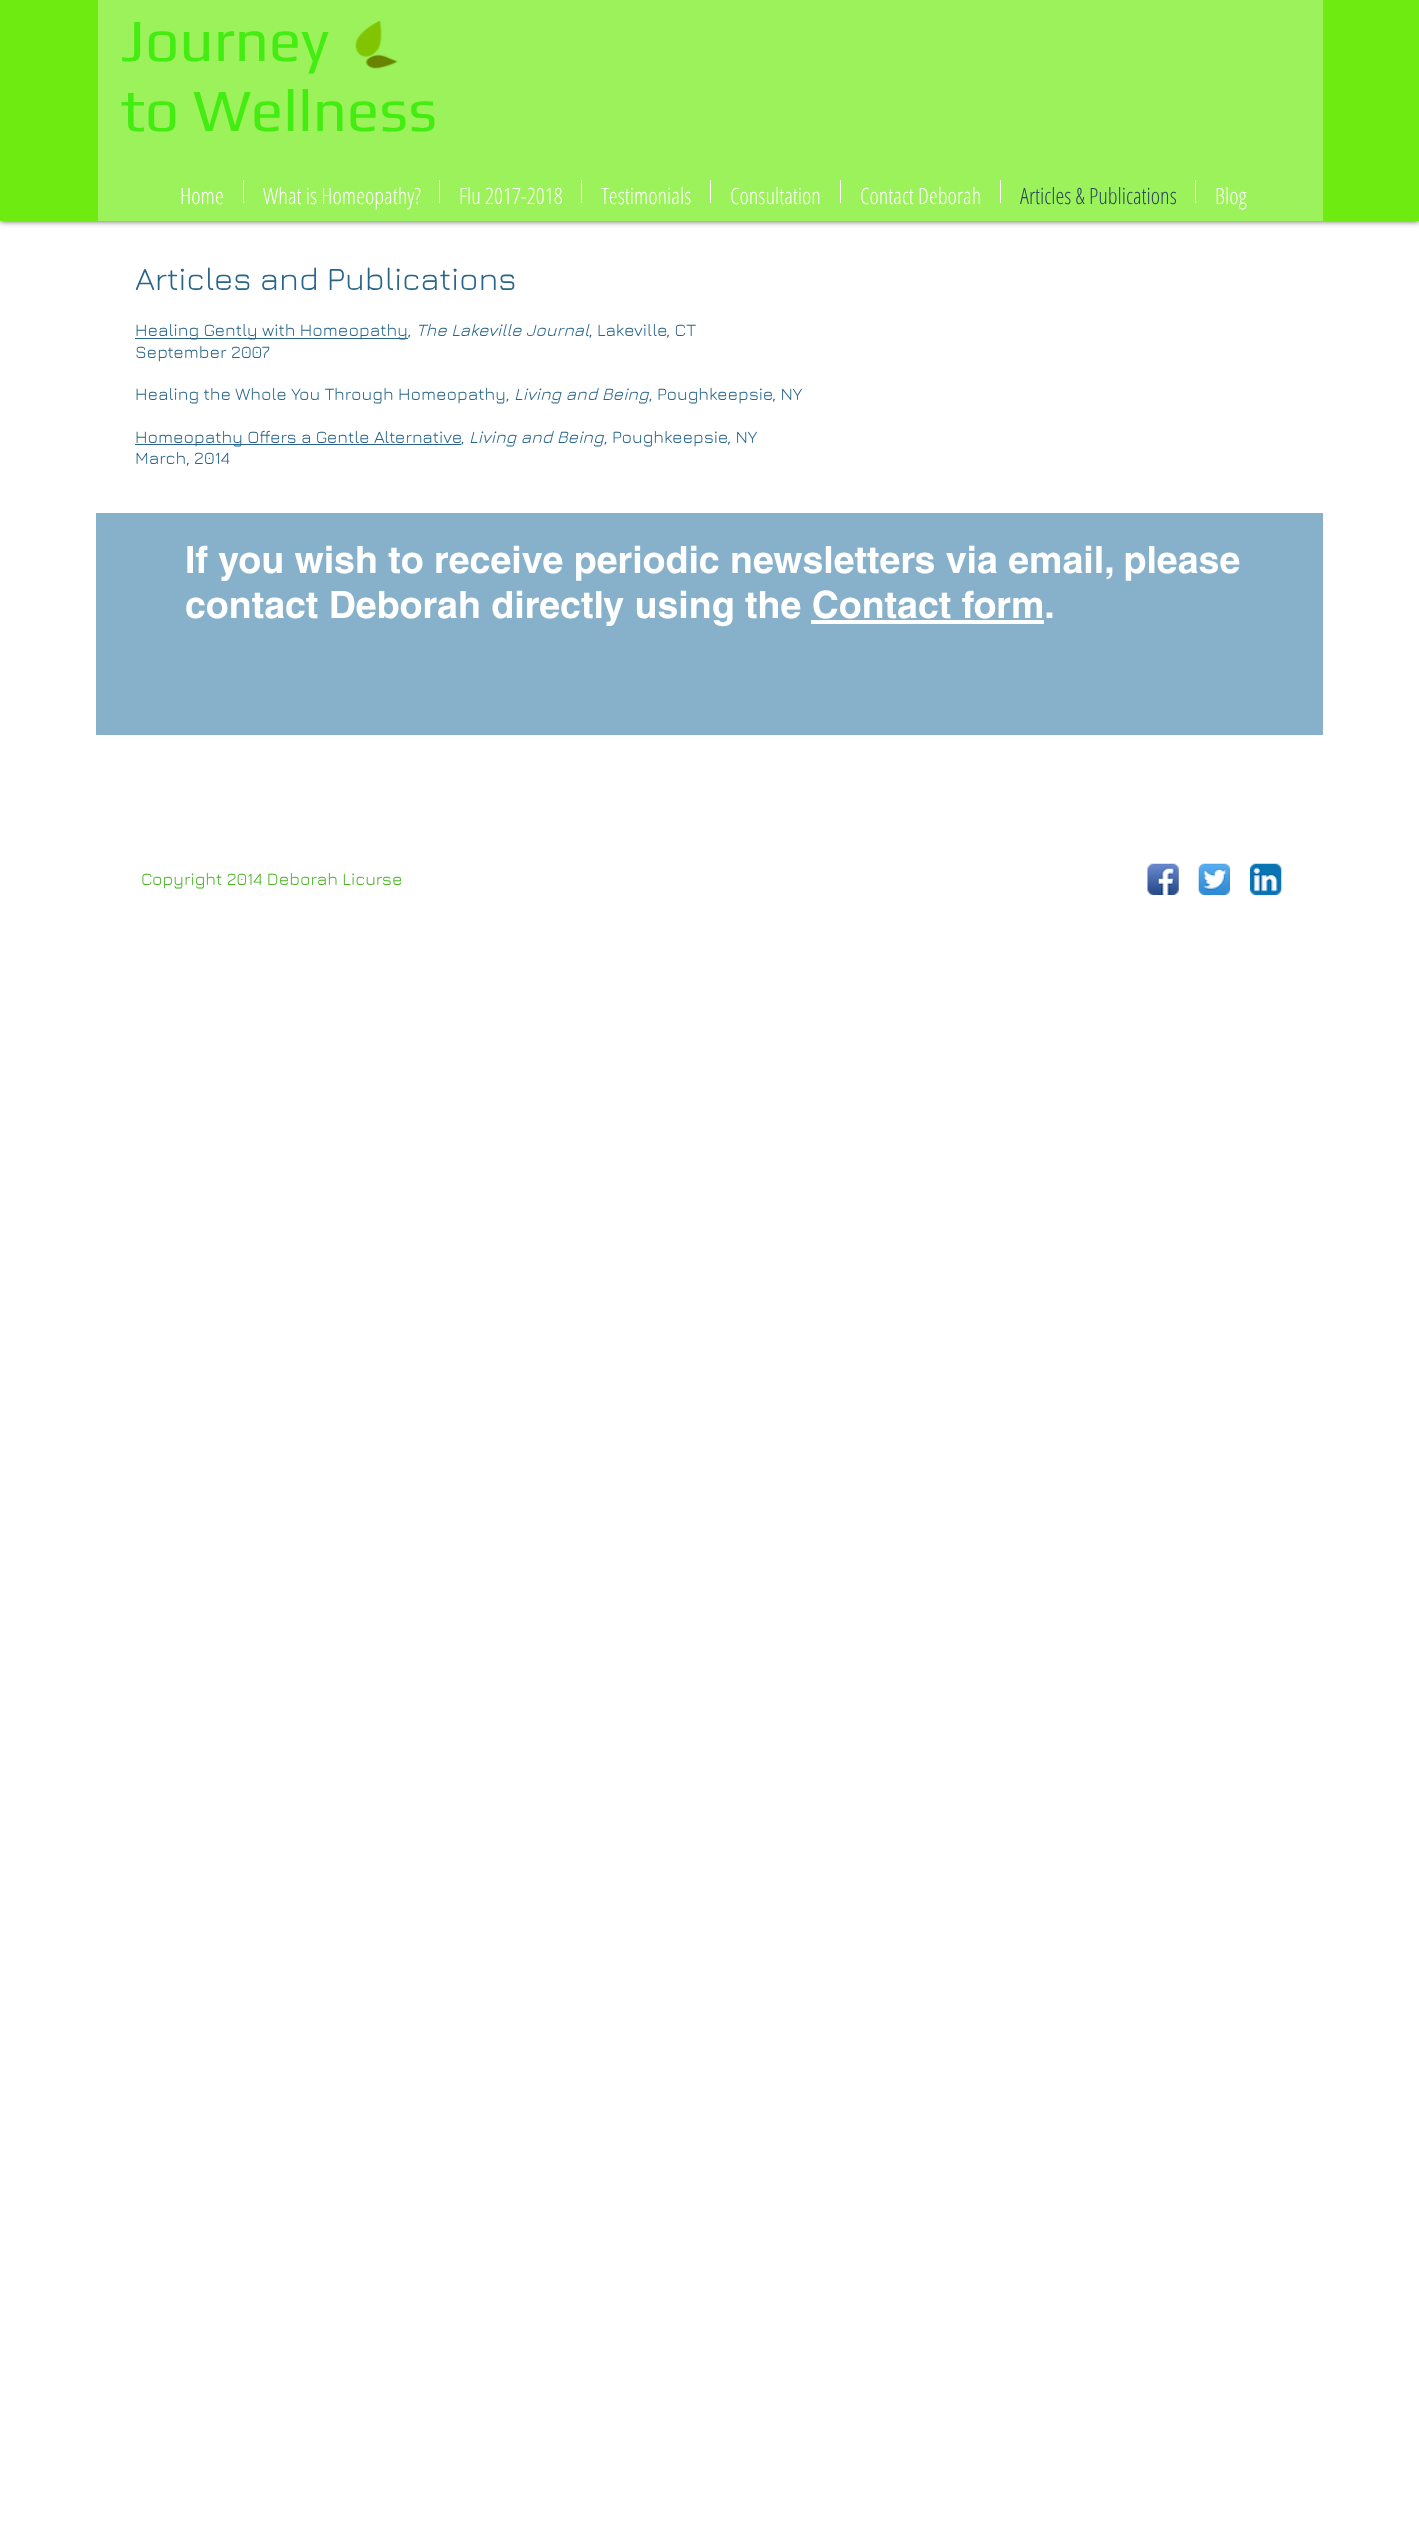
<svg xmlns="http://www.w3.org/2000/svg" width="1419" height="2548">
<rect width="100%" height="100%" fill="#fff"/>
<rect width="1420" height="221" fill="#000000b3" filter="blur(3px)"/>
<rect width="1419" height="221" fill="#6eeb10"/>
<rect x="98" width="1225" height="221" fill="#9bf25a"/>
<image x="355" y="20" width="43" height="49" href="media/1.png"/>
<text x="121" y="61" style="font-family:Play;font-size:60px;fill:#43ec11">Journey</text>
<text x="121" y="131" style="font-family:Play;font-size:60px;fill:#43ec11">to Wellness</text>
<text x="180" y="204" style="font-family:Open Sans Condensed;font-size:22.5px;font-weight:300;fill:#fff">Home</text>
<rect x="243" y="180" width="1" height="23" fill="#fff"/>
<text x="263" y="204" style="font-family:Open Sans Condensed;font-size:22.5px;font-weight:300;fill:#fff">What is Homeopathy?</text>
<rect x="439" y="180" width="1" height="23" fill="#fff"/>
<text x="459" y="204" style="font-family:Open Sans Condensed;font-size:22.5px;font-weight:300;fill:#fff">Flu 2017-2018</text>
<rect x="581" y="180" width="1" height="23" fill="#fff"/>
<text x="601" y="204" style="font-family:Open Sans Condensed;font-size:22.5px;font-weight:300;fill:#fff">Testimonials</text>
<rect x="710" y="180" width="1" height="23" fill="#fff"/>
<text x="730" y="204" style="font-family:Open Sans Condensed;font-size:22.5px;font-weight:300;fill:#fff">Consultation</text>
<rect x="840" y="180" width="1" height="23" fill="#fff"/>
<text x="860" y="204" style="font-family:Open Sans Condensed;font-size:22.5px;font-weight:300;fill:#fff">Contact Deborah</text>
<rect x="1000" y="180" width="1" height="23" fill="#fff"/>
<text x="1020" y="204" style="font-family:Open Sans Condensed;font-size:22.5px;font-weight:300;fill:#2a495c">Articles &amp; Publications</text>
<rect x="1195" y="180" width="1" height="23" fill="#fff"/>
<text x="1215" y="204" style="font-family:Open Sans Condensed;font-size:22.5px;font-weight:300;fill:#fff">Blog</text>
<text x="135" y="290" style="font-family:Jura;font-size:32.5px;fill:#286589">Articles and Publications</text>
<rect x="135" y="338" width="273" height="1" fill="#286589"/>
<text x="135" y="336" style="font-family:Jura;font-size:17.5px;fill:#286589">Healing Gently with Homeopathy,</text>
<text x="416" y="336" style="font-family:Jura;font-size:17.5px;font-style:italic;fill:#286589">The Lakeville Journal</text>
<text x="589" y="336" style="font-family:Jura;font-size:17.5px;fill:#286589">, Lakeville, CT</text>
<text x="135" y="358" style="font-family:Jura;font-size:17.5px;fill:#286589">September 2007</text>
<text x="135" y="400" style="font-family:Jura;font-size:17.5px;fill:#286589">Healing the Whole You Through Homeopathy,</text>
<text x="514" y="400" style="font-family:Jura;font-size:17.5px;font-style:italic;fill:#286589">Living and Being</text>
<text x="649" y="400" style="font-family:Jura;font-size:17.5px;fill:#286589">, Poughkeepsie, NY</text>
<rect x="135" y="444" width="326" height="1" fill="#286589"/>
<text x="135" y="443" style="font-family:Jura;font-size:17.5px;fill:#286589">Homeopathy Offers a Gentle Alternative</text>
<text x="461" y="443" style="font-family:Jura;font-size:17.5px;fill:#286589">,</text>
<text x="469" y="443" style="font-family:Jura;font-size:17.5px;font-style:italic;fill:#286589">Living and Being</text>
<text x="604" y="443" style="font-family:Jura;font-size:17.5px;fill:#286589">, Poughkeepsie, NY</text>
<text x="135" y="464" style="font-family:Jura;font-size:17.5px;fill:#286589">March, 2014</text>
<rect x="96" y="513" width="1227" height="222" fill="#87b1cb"/>
<text x="185" y="573" style="font-family:helvetica;font-size:37.5px;font-weight:bold;fill:#fff">If you wish to receive periodic newsletters via email, please</text>
<text x="185" y="618" style="font-family:helvetica;font-size:37.5px;font-weight:bold;fill:#fff">contact Deborah directly using the Contact form.</text>
<rect x="811" y="620" width="233" height="4" fill="#fff"/>
<text x="141" y="885" style="font-family:Jura;font-size:17.5px;fill:#49b323">Copyright 2014 Deborah Licurse</text>
<image x="1147" y="863" width="32" height="32" href="media/2.png"/>
<image x="1198" y="863" width="32" height="32" href="media/3.png"/>
<image x="1250" y="863" width="32" height="32" href="media/4.png"/>
</svg>
